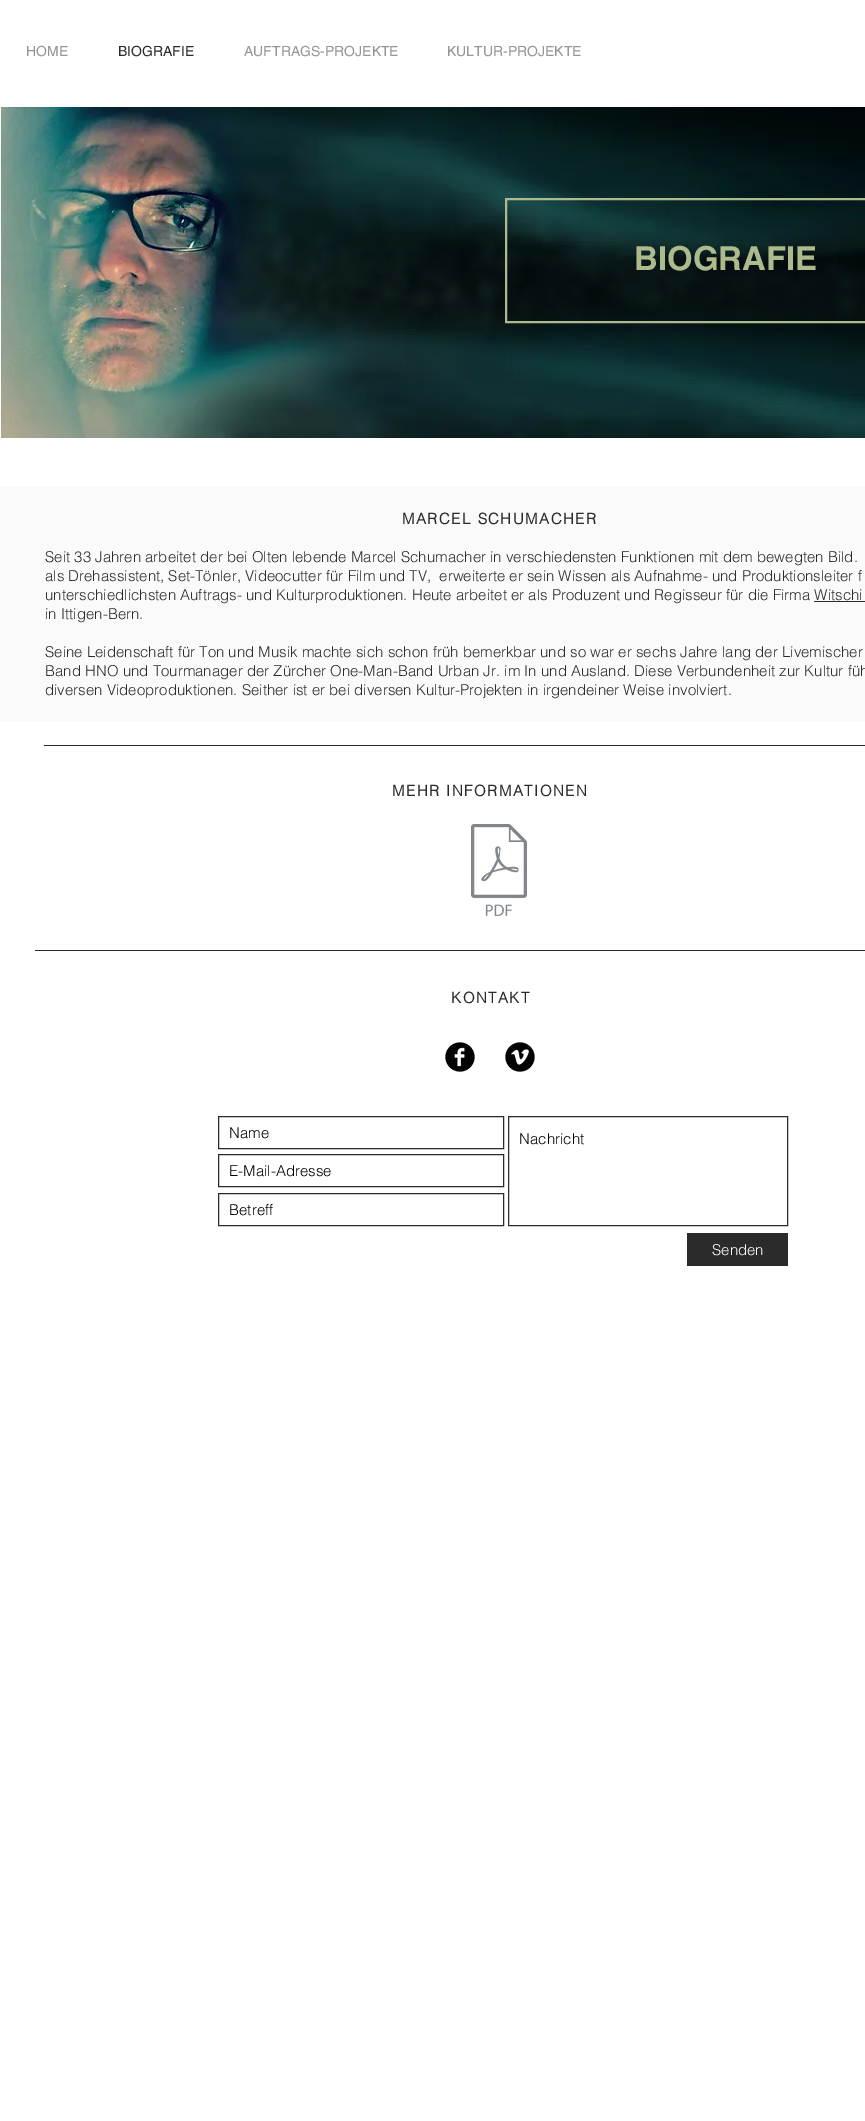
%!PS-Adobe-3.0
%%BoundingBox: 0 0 865 2121
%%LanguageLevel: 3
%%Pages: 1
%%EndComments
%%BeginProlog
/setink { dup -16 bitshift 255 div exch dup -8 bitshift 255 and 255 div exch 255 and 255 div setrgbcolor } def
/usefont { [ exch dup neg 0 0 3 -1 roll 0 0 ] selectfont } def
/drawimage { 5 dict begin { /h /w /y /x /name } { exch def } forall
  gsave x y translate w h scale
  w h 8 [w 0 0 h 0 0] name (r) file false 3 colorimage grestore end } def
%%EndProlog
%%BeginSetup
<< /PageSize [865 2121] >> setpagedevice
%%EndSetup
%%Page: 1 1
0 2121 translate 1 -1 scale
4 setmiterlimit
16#FFFFFF setink
0 0 865 2121 rectfill
/helvetica-Regular 14 usefont
16#979595 setink
26 56 moveto (HOME) show
16#2B2B2B setink
118 56 moveto (BIOGRAFIE) show
16#979595 setink
244 56 moveto (AUFTRAGS-PROJEKTE) show
447 56 moveto (KULTUR-PROJEKTE) show
(img1.raw) 1 107 864 331 drawimage
16#ACBA8D setink
2 setlinewidth
506 199 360 123 rectstroke
/helvetica-Bold 33 usefont
634 270 moveto (BIOGRAFIE) show
16#FAFAFA setink
0 486 865 236 rectfill
/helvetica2-Bold 15 usefont
16#2B2B2B setink
402 524 moveto 1.5 0 (MARCEL SCHUMACHER) ashow
/helvetica-Light 15 usefont
[
    [(Seit 33 Jahren arbeitet der bei Olten lebende Marcel Schumacher in verschiedensten Funktionen mit dem bewegten Bild.) 45 562]
    [(als Drehassistent, Set-Tönler, Videocutter für Film und TV,  erweiterte er sein Wissen als Aufnahme- und Produktionsleiter f) 45 581]
    [(unterschiedlichsten Auftrags- und Kulturproduktionen. Heute arbeitet er als Produzent und Regisseur für die Firma Witschi) 45 600]
] { aload pop moveto show } forall
814 601 51 1 rectfill
[
    [(in Ittigen-Bern.) 45 619]
    [(Seine Leidenschaft für Ton und Musik machte sich schon früh bemerkbar und so war er sechs Jahre lang der Livemischer) 45 657]
    [(Band HNO und Tourmanager der Zürcher One-Man-Band Urban Jr. im In und Ausland. Diese Verbundenheit zur Kultur füh) 45 676]
    [(diversen Videoproduktionen. Seither ist er bei diversen Kultur-Projekten in irgendeiner Weise involviert.) 45 695]
] { aload pop moveto show } forall
44 745 821 1 rectfill
/helvetica2-Bold 15 usefont
392 796 moveto 1.5 0 (MEHR INFORMATIONEN) ashow
(img2.raw) 471 824 56 92 drawimage
35 950 830 1 rectfill
451 1003 moveto 1.5 0 (KONTAKT) ashow
(img3.raw) 445 1042 30 30 drawimage
(img4.raw) 505 1042 30 30 drawimage
1 setlinewidth
218.5 1116.5 285 32 rectstroke
/helvetica-Light 15 usefont
16#000000 setink
229 1138 moveto (Name) show
16#2B2B2B setink
508.5 1116.5 279 109 rectstroke
16#000000 setink
519 1144 moveto (Nachricht) show
16#2B2B2B setink
218.5 1154.5 285 32 rectstroke
16#000000 setink
229 1176 moveto (E-Mail-Adresse) show
16#2B2B2B setink
218.5 1193.5 285 32 rectstroke
16#000000 setink
229 1215 moveto (Betreff) show
16#2B2B2B setink
687 1233 101 33 rectfill
16#FFFFFF setink
712 1255 moveto (Senden) show
showpage
%%EOF
